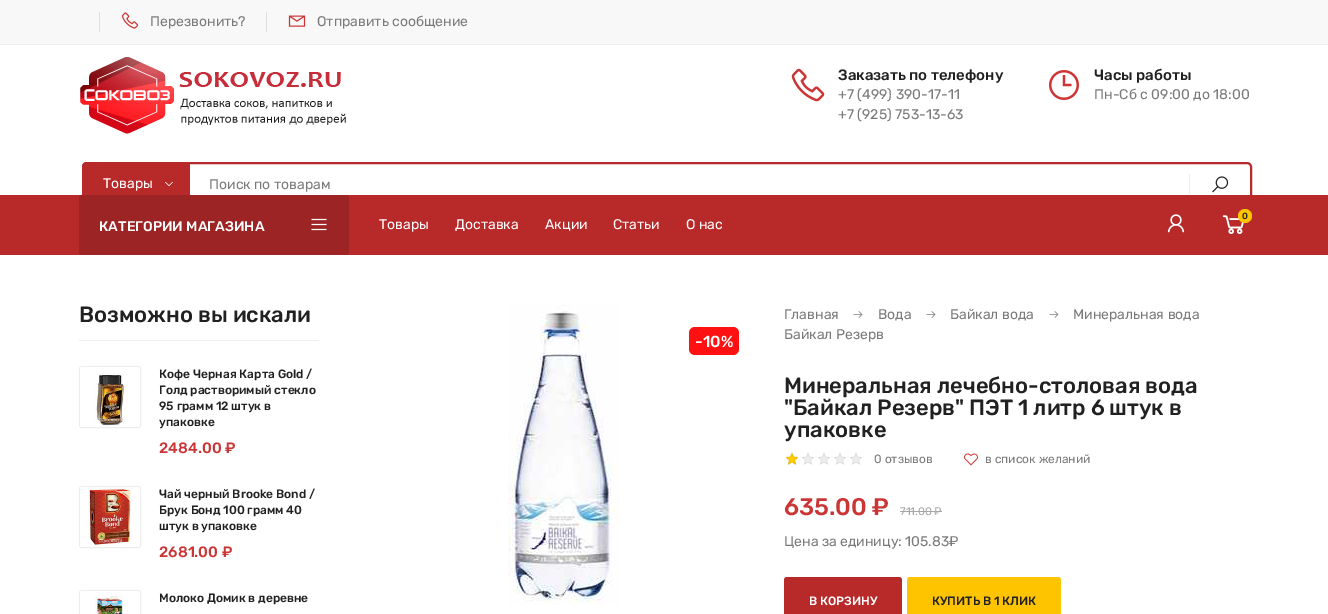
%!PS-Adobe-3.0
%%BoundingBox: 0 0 1328 614
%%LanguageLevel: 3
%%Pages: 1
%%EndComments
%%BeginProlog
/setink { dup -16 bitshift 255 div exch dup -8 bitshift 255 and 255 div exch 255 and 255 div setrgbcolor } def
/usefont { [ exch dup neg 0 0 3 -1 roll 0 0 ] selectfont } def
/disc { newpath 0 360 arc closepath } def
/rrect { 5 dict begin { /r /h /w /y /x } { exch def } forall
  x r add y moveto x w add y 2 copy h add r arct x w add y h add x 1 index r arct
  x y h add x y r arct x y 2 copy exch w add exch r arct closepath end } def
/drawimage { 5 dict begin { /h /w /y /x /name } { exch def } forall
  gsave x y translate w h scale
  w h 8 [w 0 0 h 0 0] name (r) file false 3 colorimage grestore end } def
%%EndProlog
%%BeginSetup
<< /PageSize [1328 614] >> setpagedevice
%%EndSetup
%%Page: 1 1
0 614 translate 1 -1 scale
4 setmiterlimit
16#FFFFFF setink
0 0 1328 614 rectfill
[
    [0 0 1328 44 16#F8F8F8]
    [0 44 1328 1 16#EDEDED]
    [99 12 1 20 16#DFDFDF]
] { aload pop setink rectfill } forall
(img1.raw) 121 12 18 17 drawimage
/Rubik-Regular 14 usefont
16#7A7A7A setink
150 26 moveto (Перезвонить?) show
16#DFDFDF setink
266 12 1 20 rectfill
(img2.raw) 288 15 18 12 drawimage
16#7A7A7A setink
317 26 moveto (Отправить сообщение) show
(img3.raw) 80 57 266 77 drawimage
(img4.raw) 791 68 34 34 drawimage
/Rubik-Medium 15 usefont
16#212121 setink
838 80 moveto (Заказать по телефону) show
/Rubik-Regular 14 usefont
16#7A7A7A setink
838 99 moveto (+7 \(499\) 390-17-11) show
838 119 moveto (+7 \(925\) 753-13-63) show
(img5.raw) 1049 70 30 30 drawimage
/Rubik-Medium 15 usefont
16#212121 setink
1094 80 moveto (Часы работы) show
/Rubik-Regular 14 usefont
16#7A7A7A setink
1094 99 moveto (Пн-Cб с 09:00 до 18:00) show
16#B82A2A setink
2 setlinewidth
83 163 1168 42 4 rrect stroke
87 162 moveto 190 162 lineto 190 206 lineto 87 206 lineto 84 206 82 204 82 201 curveto 82 167 lineto 82 164 84 162 87 162 curveto closepath fill
(img6.raw) 165 182 8 4 drawimage
16#FFFFFF setink
103 188 moveto (Товары) show
16#7A7A7A setink
209 189 moveto (Поиск по товарам) show
16#EDEDED setink
1189 174 1 20 rectfill
(img7.raw) 1212 176 17 17 drawimage
16#B82A2A setink
0 195 1328 60 rectfill
16#9C2424 setink
79 195 270 60 3 rrect fill
/Rubik-Medium 14 usefont
16#FFFFFF setink
99 231 moveto (КАТЕГОРИИ МАГАЗИНА) show
(img8.raw) 311 218 16 13 drawimage
/Rubik-Regular 14 usefont
[
    [(Товары) 379 229]
    [(Доставка) 455 229]
    [(Акции) 545 229]
    [(Статьи) 613 229]
    [(О нас) 686 229]
] { aload pop moveto show } forall
(img9.raw) 1167 214 18 19 drawimage
(img10.raw) 1222 215 22 19 drawimage
16#FFC400 setink
1245 216 7 disc fill
/Rubik-Medium 9 usefont
16#212121 setink
1242 219 moveto (0) show
16#EDEDED setink
79 340 240 1 rectfill
/Rubik-Medium 22 usefont
16#212121 setink
79 322 moveto (Возможно вы искали) show
16#EDEDED setink
1 setlinewidth
79.5 366.5 61 61 2.5 rrect stroke
(img11.raw) 80 367 60 60 drawimage
/Rubik-Medium 12 usefont
16#212121 setink
[
    [(Кофе Черная Карта Gold /) 159 378]
    [(Голд растворимый стекло) 159 394]
    [(95 грамм 12 штук в) 159 410]
    [(упаковке) 159 426]
] { aload pop moveto show } forall
/Rubik-Medium 15 usefont
16#CC3535 setink
159 453 moveto (2484.00 ₽) show
16#EDEDED setink
79.5 486.5 61 61 2.5 rrect stroke
(img12.raw) 80 487 60 60 drawimage
/Rubik-Medium 12 usefont
16#212121 setink
[
    [(Чай черный Brooke Bond /) 159 498]
    [(Брук Бонд 100 грамм 40) 159 514]
    [(штук в упаковке) 159 530]
] { aload pop moveto show } forall
/Rubik-Medium 15 usefont
16#CC3535 setink
159 557 moveto (2681.00 ₽) show
16#EDEDED setink
79.5 590.5 61 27 2.5 rrect stroke
(img13.raw) 80 591 60 23 drawimage
/Rubik-Medium 12 usefont
16#212121 setink
159 602 moveto (Молоко Домик в деревне) show
(img14.raw) 508 305 112 300 drawimage
16#FF1111 setink
689 327 50 28 6 rrect fill
/Rubik-Medium 16 usefont
16#FFFFFF setink
695 347 moveto (-10%) show
/Rubik-Regular 14 usefont
16#7A7A7A setink
784 319 moveto (Главная) show
(img15.raw) 853 311 10 7 drawimage
878 319 moveto (Вода) show
(img15.raw) 926 311 10 7 drawimage
950 319 moveto (Байкал вода) show
(img15.raw) 1049 311 10 7 drawimage
1073 319 moveto (Минеральная вода) show
784 339 moveto (Байкал Резерв) show
/Rubik-Medium 22 usefont
16#212121 setink
[
    [(Минеральная лечебно-столовая вода) 784 393]
    [("Байкал Резерв" ПЭТ 1 литр 6 штук в) 784 415]
    [(упаковке) 784 437]
] { aload pop moveto show } forall
(img16.raw) 786 453 76 12 drawimage
(img17.raw) 786 453 12 12 drawimage
/Rubik-Regular 12 usefont
16#7A7A7A setink
874 463 moveto (0 отзывов) show
(img18.raw) 964 453 14 13 drawimage
985 463 moveto (в список желаний) show
/Rubik-Medium 24 usefont
16#CC3535 setink
784 515 moveto (635.00 ₽) show
/Rubik-Regular 11 usefont
16#A7A7A7 setink
900 515 moveto (711.00 ₽) show
900 511 42 1 rectfill
/Rubik-Regular 14 usefont
16#7A7A7A setink
784 546 moveto (Цена за единицу: 105.83₽) show
16#B82A2A setink
784 577 118 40 3 rrect fill
/Rubik-Medium 12 usefont
16#FFFFFF setink
809 605 moveto (В КОРЗИНУ) show
16#FFC400 setink
907 577 154 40 3 rrect fill
16#212121 setink
932 605 moveto (КУПИТЬ В 1 КЛИК) show
showpage
%%EOF
